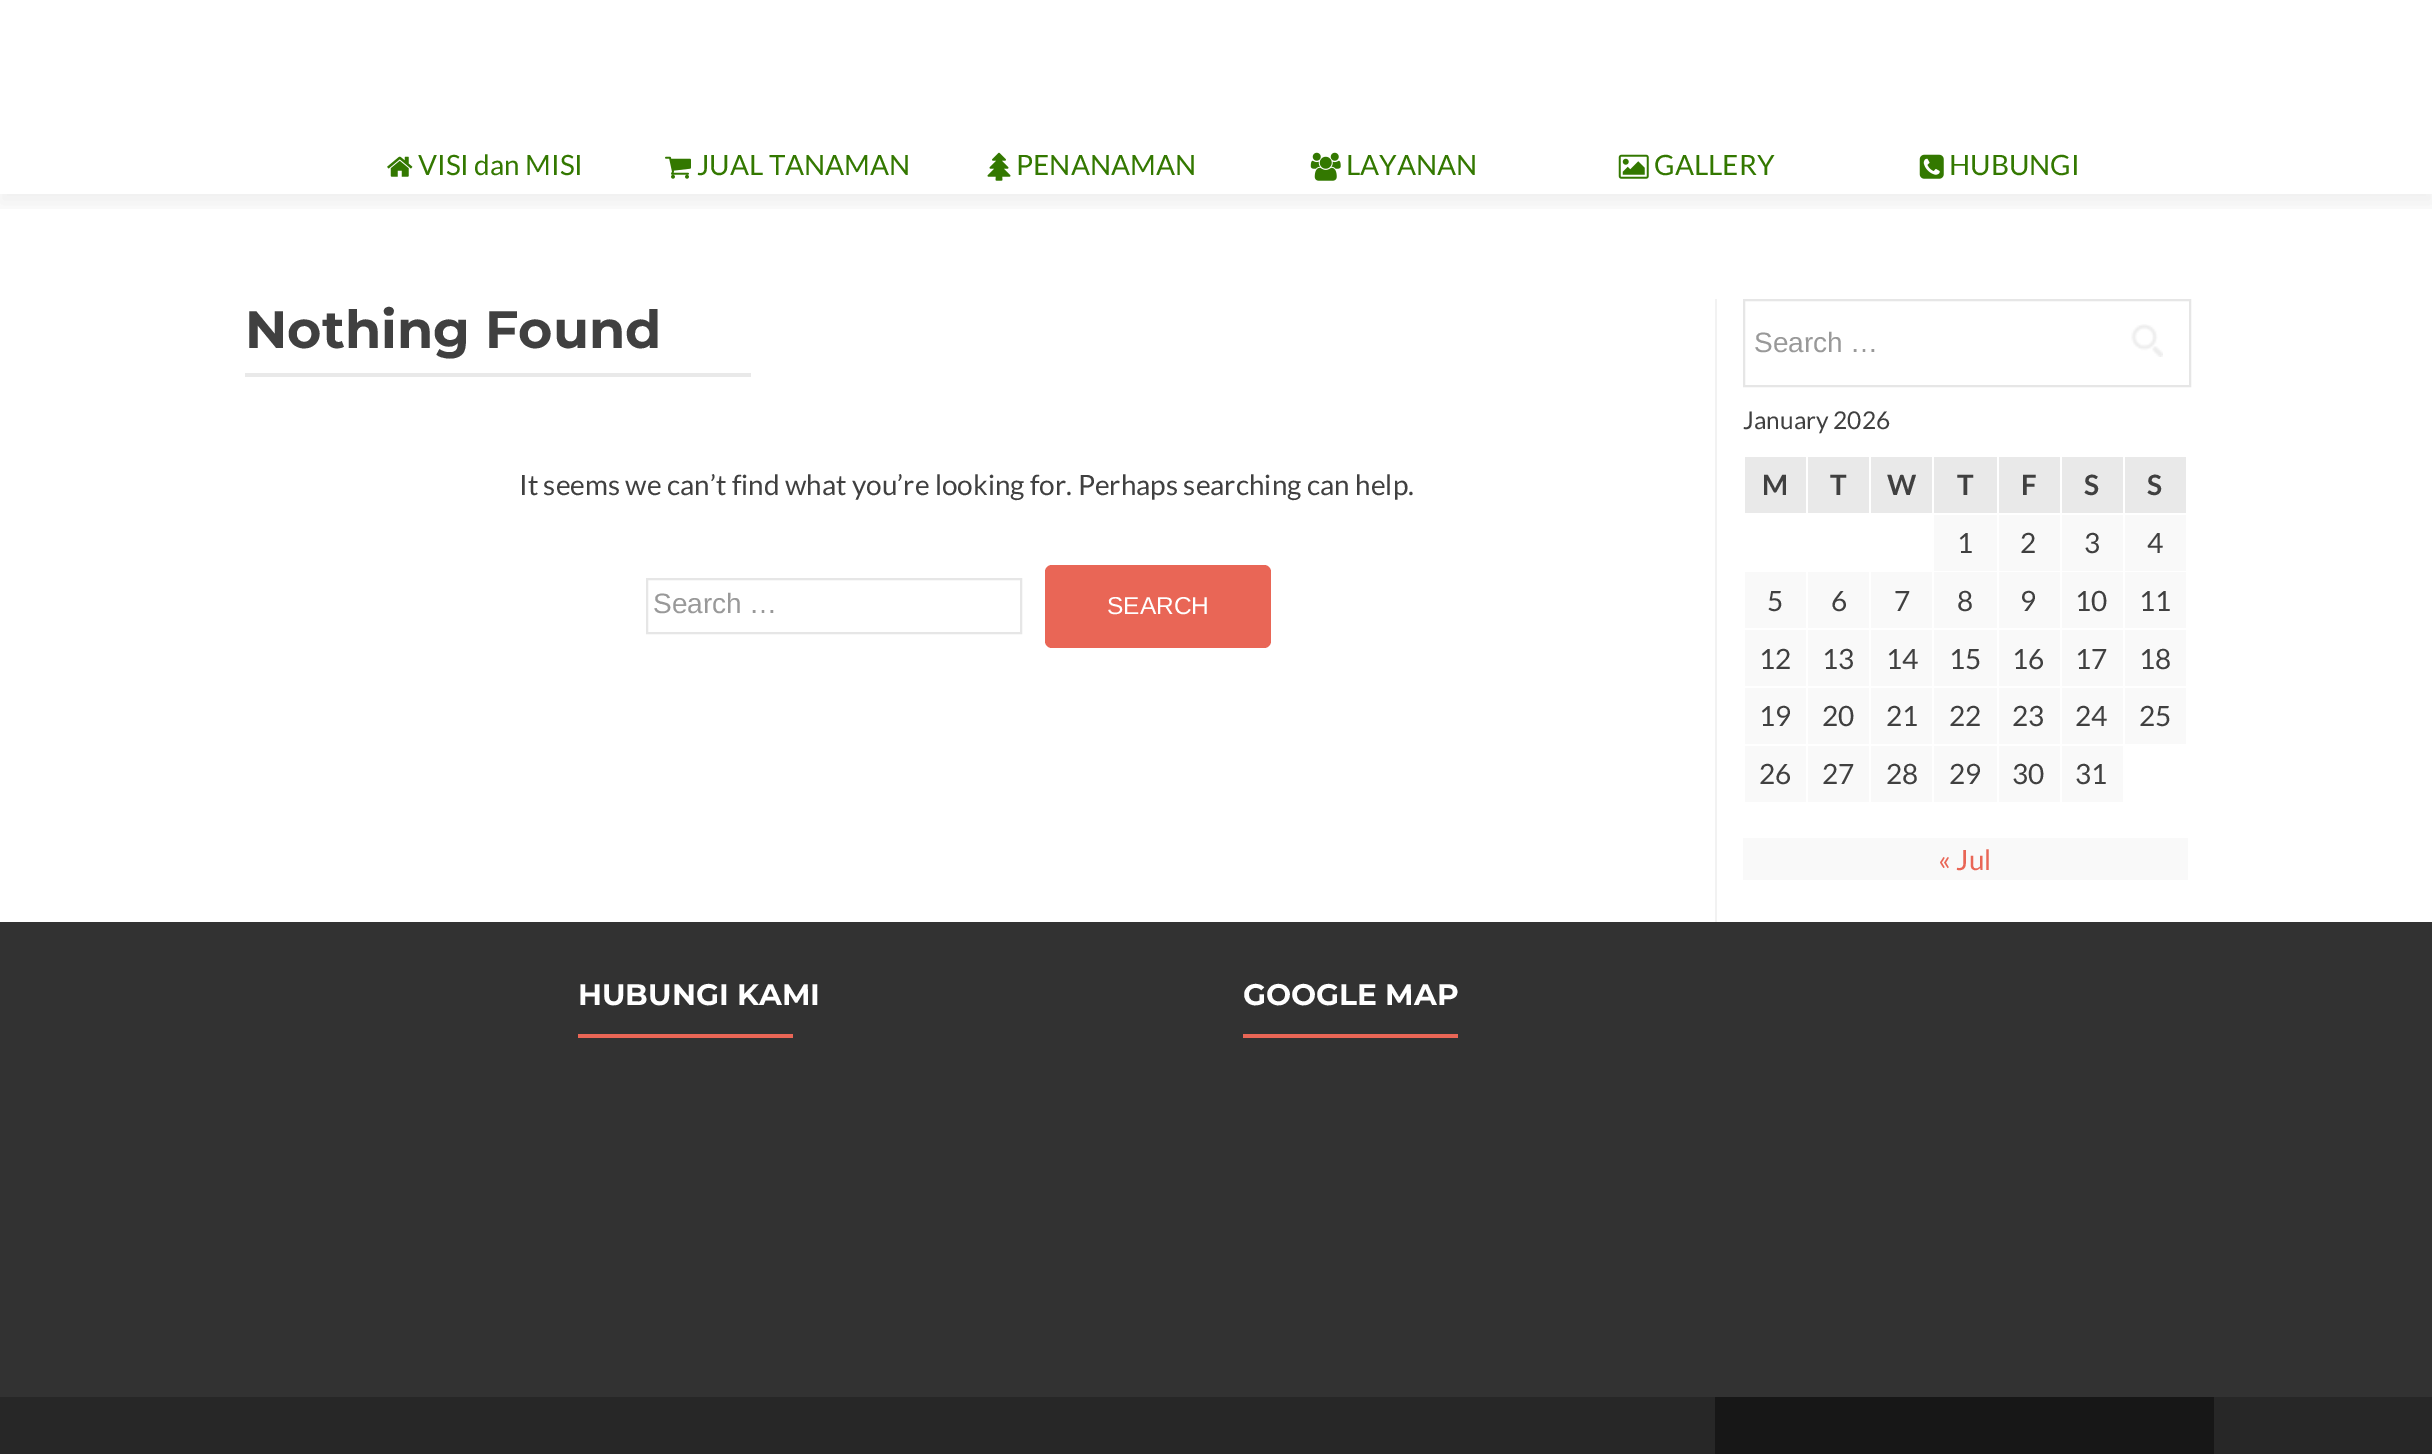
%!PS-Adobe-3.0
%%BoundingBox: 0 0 2432 1454
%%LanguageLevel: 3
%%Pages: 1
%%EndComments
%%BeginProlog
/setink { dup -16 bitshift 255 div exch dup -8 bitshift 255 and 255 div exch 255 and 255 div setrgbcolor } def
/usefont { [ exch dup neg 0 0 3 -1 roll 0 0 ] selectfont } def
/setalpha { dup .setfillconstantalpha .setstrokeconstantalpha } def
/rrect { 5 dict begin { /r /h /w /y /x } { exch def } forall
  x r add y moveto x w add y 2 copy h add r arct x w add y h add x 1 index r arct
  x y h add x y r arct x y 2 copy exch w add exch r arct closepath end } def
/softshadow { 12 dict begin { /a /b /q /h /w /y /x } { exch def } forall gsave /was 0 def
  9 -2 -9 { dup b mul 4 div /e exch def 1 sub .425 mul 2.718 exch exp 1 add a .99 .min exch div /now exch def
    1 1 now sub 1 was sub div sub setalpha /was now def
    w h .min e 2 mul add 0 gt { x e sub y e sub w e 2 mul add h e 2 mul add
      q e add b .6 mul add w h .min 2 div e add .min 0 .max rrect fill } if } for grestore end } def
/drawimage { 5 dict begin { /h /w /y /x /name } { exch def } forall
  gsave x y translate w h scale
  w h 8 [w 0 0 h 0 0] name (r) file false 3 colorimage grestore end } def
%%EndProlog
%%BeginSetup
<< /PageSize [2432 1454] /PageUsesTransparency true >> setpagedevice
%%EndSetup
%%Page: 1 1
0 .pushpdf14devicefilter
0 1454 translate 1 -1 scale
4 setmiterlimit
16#FFFFFF setink
0 0 2432 1454 rectfill
gsave
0 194 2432 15 rectclip
16#323232 setink
0 9 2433 194 0 9.5 0.08 softshadow
grestore
(img1.raw) 387 156 26 21 drawimage
/Lato-Regular 28 usefont
16#337800 setink
418 175 moveto (VISI dan MISI) show
(img2.raw) 665 156 26 23 drawimage
697 175 moveto (JUAL TANAMAN) show
(img3.raw) 987 152 24 29 drawimage
1016 175 moveto (PENANAMAN) show
(img4.raw) 1310 152 31 29 drawimage
1346 175 moveto (LAYANAN) show
(img5.raw) 1618 154 31 25 drawimage
1654 175 moveto (GALLERY) show
(img6.raw) 1919 154 25 25 drawimage
1949 175 moveto (HUBUNGI) show
/Montserrat-Thin 52.5 usefont
16#404040 setink
245 348 moveto (Nothing Found) show
16#E9E9E9 setink
245 373 506 4 rectfill
/Lato-Regular 28 usefont
16#404040 setink
519 495 moveto (It seems we can’t find what you’re looking for. Perhaps searching can help.) show
16#E6E6E6 setink
2 setlinewidth
647 579 374 54 rectstroke
/LiberationSans-Regular 28 usefont
16#999999 setink
653 613 moveto (Search …) show
16#E96656 setink
1045 565 226 83 7 rrect fill
/LiberationSans-Regular 24.5 usefont
16#FFFFFF setink
1107 614 moveto (SEARCH) show
16#F2F2F2 setink
1715 299 2 623 rectfill
16#E6E6E6 setink
1744 300 446 86 rectstroke
/LiberationSans-Regular 28 usefont
16#999999 setink
1754 352 moveto (Search …) show
(img7.raw) 2131 324 32 33 drawimage
/Lato-Regular 24.5 usefont
16#404040 setink
1743 429 moveto (January 2026) show
16#E9E9E9 setink
1745 457 61 56 rectfill
/Lato-Bold 28 usefont
16#404040 setink
1762 495 moveto (M) show
16#E9E9E9 setink
1808 457 61 56 rectfill
16#404040 setink
1830 495 moveto (T) show
16#E9E9E9 setink
1871 457 61 56 rectfill
16#404040 setink
1887 495 moveto (W) show
16#E9E9E9 setink
1934 457 63 56 rectfill
16#404040 setink
1957 495 moveto (T) show
16#E9E9E9 setink
1999 457 61 56 rectfill
16#404040 setink
2021 495 moveto (F) show
16#E9E9E9 setink
2062 457 61 56 rectfill
16#404040 setink
2084 495 moveto (S) show
16#E9E9E9 setink
2125 457 61 56 rectfill
16#404040 setink
2147 495 moveto (S) show
16#F9F9F9 setink
1934 515 63 56 rectfill
/Lato-Regular 28 usefont
16#404040 setink
1957 553 moveto (1) show
16#F9F9F9 setink
1999 515 61 56 rectfill
16#404040 setink
2020 553 moveto (2) show
16#F9F9F9 setink
2062 515 61 56 rectfill
16#404040 setink
2084 553 moveto (3) show
16#F9F9F9 setink
2125 515 61 56 rectfill
16#404040 setink
2147 553 moveto (4) show
16#F9F9F9 setink
1745 572 61 56 rectfill
16#404040 setink
1767 611 moveto (5) show
16#F9F9F9 setink
1808 572 61 56 rectfill
16#404040 setink
1831 611 moveto (6) show
16#F9F9F9 setink
1871 572 61 56 rectfill
16#404040 setink
1894 611 moveto (7) show
16#F9F9F9 setink
1934 572 63 56 rectfill
16#404040 setink
1957 611 moveto (8) show
16#F9F9F9 setink
1999 572 61 56 rectfill
16#404040 setink
2020 611 moveto (9) show
16#F9F9F9 setink
2062 572 61 56 rectfill
16#404040 setink
2075 611 moveto (10) show
16#F9F9F9 setink
2125 572 61 56 rectfill
16#404040 setink
2139 611 moveto (11) show
16#F9F9F9 setink
1745 630 61 56 rectfill
16#404040 setink
1759 669 moveto (12) show
16#F9F9F9 setink
1808 630 61 56 rectfill
16#404040 setink
1822 669 moveto (13) show
16#F9F9F9 setink
1871 630 61 56 rectfill
16#404040 setink
1886 669 moveto (14) show
16#F9F9F9 setink
1934 630 63 56 rectfill
16#404040 setink
1949 669 moveto (15) show
16#F9F9F9 setink
1999 630 61 56 rectfill
16#404040 setink
2012 669 moveto (16) show
16#F9F9F9 setink
2062 630 61 56 rectfill
16#404040 setink
2075 669 moveto (17) show
16#F9F9F9 setink
2125 630 61 56 rectfill
16#404040 setink
2139 669 moveto (18) show
16#F9F9F9 setink
1745 688 61 56 rectfill
16#404040 setink
1759 726 moveto (19) show
16#F9F9F9 setink
1808 688 61 56 rectfill
16#404040 setink
1822 726 moveto (20) show
16#F9F9F9 setink
1871 688 61 56 rectfill
16#404040 setink
1886 726 moveto (21) show
16#F9F9F9 setink
1934 688 63 56 rectfill
16#404040 setink
1949 726 moveto (22) show
16#F9F9F9 setink
1999 688 61 56 rectfill
16#404040 setink
2012 726 moveto (23) show
16#F9F9F9 setink
2062 688 61 56 rectfill
16#404040 setink
2075 726 moveto (24) show
16#F9F9F9 setink
2125 688 61 56 rectfill
16#404040 setink
2139 726 moveto (25) show
16#F9F9F9 setink
1745 746 61 56 rectfill
16#404040 setink
1759 784 moveto (26) show
16#F9F9F9 setink
1808 746 61 56 rectfill
16#404040 setink
1822 784 moveto (27) show
16#F9F9F9 setink
1871 746 61 56 rectfill
16#404040 setink
1886 784 moveto (28) show
16#F9F9F9 setink
1934 746 63 56 rectfill
16#404040 setink
1949 784 moveto (29) show
16#F9F9F9 setink
1999 746 61 56 rectfill
16#404040 setink
2012 784 moveto (30) show
16#F9F9F9 setink
2062 746 61 56 rectfill
16#404040 setink
2075 784 moveto (31) show
16#F9F9F9 setink
1743 838 445 42 rectfill
16#E96656 setink
1938 870 moveto (« Jul) show
16#272727 setink
0 1397 2432 57 rectfill
16#323232 setink
0 922 2432 475 rectfill
/Montserrat-Thin 29.75 usefont
16#FFFFFF setink
578 1005 moveto (HUBUNGI KAMI) show
16#E96656 setink
578 1034 215 4 rectfill
16#FFFFFF setink
1243 1005 moveto (GOOGLE MAP) show
16#E96656 setink
1243 1034 215 4 rectfill
16#171717 setink
1715 1397 499 57 rectfill
.poppdf14devicefilter showpage
%%EOF
